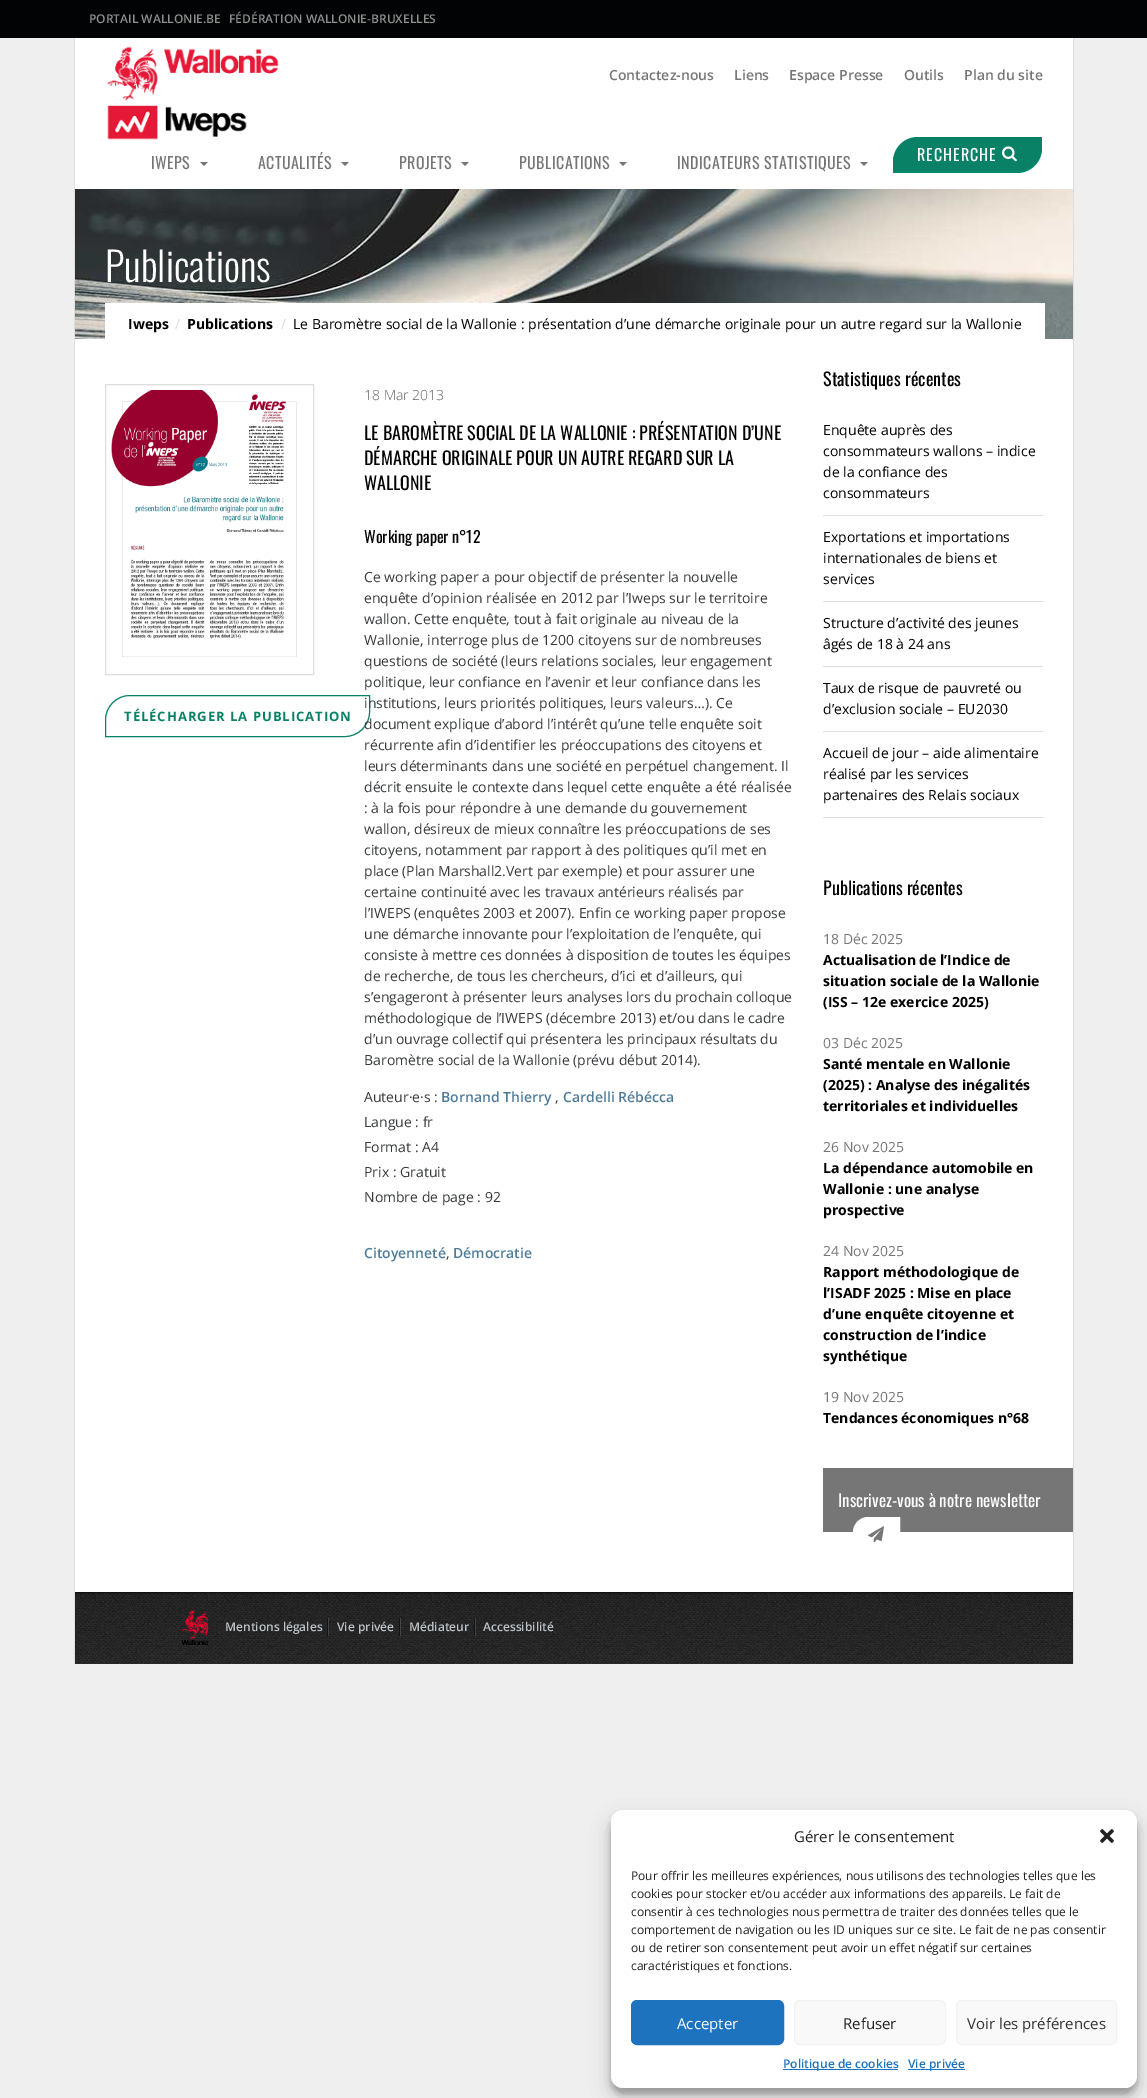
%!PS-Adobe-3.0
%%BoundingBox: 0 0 1147 2098
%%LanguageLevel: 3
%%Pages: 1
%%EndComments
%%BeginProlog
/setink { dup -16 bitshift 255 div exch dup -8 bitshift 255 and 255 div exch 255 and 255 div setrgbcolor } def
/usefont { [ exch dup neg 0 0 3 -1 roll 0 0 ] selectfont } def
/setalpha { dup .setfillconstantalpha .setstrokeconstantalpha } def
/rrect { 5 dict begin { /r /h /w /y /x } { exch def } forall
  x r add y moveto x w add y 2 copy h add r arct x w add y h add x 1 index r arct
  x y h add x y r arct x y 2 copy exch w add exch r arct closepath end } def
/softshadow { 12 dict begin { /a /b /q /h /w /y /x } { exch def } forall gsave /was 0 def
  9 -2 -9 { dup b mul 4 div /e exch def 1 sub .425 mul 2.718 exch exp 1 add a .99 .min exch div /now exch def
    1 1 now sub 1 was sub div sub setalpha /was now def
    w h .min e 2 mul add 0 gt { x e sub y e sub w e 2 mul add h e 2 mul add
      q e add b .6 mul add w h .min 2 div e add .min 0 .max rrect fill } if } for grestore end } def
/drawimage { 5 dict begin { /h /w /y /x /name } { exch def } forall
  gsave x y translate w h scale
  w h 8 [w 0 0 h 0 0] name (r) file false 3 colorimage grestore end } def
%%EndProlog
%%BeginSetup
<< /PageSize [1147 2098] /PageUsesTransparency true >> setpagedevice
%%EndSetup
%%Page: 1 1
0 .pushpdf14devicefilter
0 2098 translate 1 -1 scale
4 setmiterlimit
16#EFEFEF setink
0 0 1147 2098 rectfill
16#020304 setink
0 0 1147 38 rectfill
/OpenSans-SemiBold 12 usefont
16#8F8F8F setink
89 23 moveto (PORTAIL WALLONIE.BE) show
229 23 moveto (FÉDÉRATION WALLONIE-BRUXELLES) show
[
    [75 38 998 151 16#FFFFFF]
    [1073 38 1 1626 16#DDDDDD]
    [74 38 1 1626 16#DDDDDD]
] { aload pop setink rectfill } forall
(img1.raw) 107 46 172 94 drawimage
/OpenSans-SemiBold 14 usefont
16#767676 setink
[
    [(Contactez-nous) 609 80]
    [(Liens) 734 80]
    [(Espace Presse) 789 80]
    [(Outils) 904 80]
    [(Plan du site) 964 80]
] { aload pop moveto show } forall
/Oswald-Regular 16 usefont
151 169 moveto 0.4 0 (IWEPS) ashow
200 162 moveto 208 162 lineto 204 166 lineto closepath fill
258 169 moveto 0.4 0 (ACTUALITÉS) ashow
341 162 moveto 349 162 lineto 345 166 lineto closepath fill
399 169 moveto 0.4 0 (PROJETS) ashow
461 162 moveto 469 162 lineto 465 166 lineto closepath fill
519 169 moveto 0.4 0 (PUBLICATIONS) ashow
619 162 moveto 627 162 lineto 623 166 lineto closepath fill
677 169 moveto 0.4 0 (INDICATEURS STATISTIQUES) ashow
860 162 moveto 868 162 lineto 864 166 lineto closepath fill
16#008A6C setink
918 139 moveto 1042 139 lineto 1042 148 lineto 1042 162 1031 173 1017 173 curveto 893 173 lineto 893 164 lineto 893 150 904 139 918 139 curveto closepath fill
16#088167 setink
918 137 moveto 1042 137 lineto 1042 146 lineto 1042 160 1031 171 1017 171 curveto 893 171 lineto 893 162 lineto 893 148 904 137 918 137 curveto closepath fill
16#FFFFFF setink
917 161 moveto 1 0 (RECHERCHE) ashow
(img2.raw) 1002 146 15 16 drawimage
75 339 998 1253 rectfill
(img3.raw) 75 189 998 150 drawimage
/Oswald-Light 40 usefont
105 282 moveto (Publications) show
105 303 940 36 rectfill
/OpenSans-Bold 14 usefont
16#000000 setink
128 329 moveto (Iweps) show
/OpenSans-Regular 14 usefont
16#DDDDDD setink
175 329 moveto (/) show
/OpenSans-Bold 14 usefont
16#000000 setink
187 329 moveto (Publications) show
/OpenSans-Regular 14 usefont
16#DDDDDD setink
281 329 moveto (/) show
16#000000 setink
293 329 moveto (Le Baromètre social de la Wallonie : présentation d’une démarche originale pour un autre regard sur la Wallonie) show
16#DDDDDD setink
105.5 384.5 208 290 rectstroke
(img4.raw) 111 390 186 267 drawimage
16#088167 setink
130 695.5 moveto 369.5 695.5 lineto 369.5 712 lineto 369.5 725.5 358.5 736.5 345 736.5 curveto 105.5 736.5 lineto 105.5 720 lineto 105.5 706.5 116.5 695.5 130 695.5 curveto closepath stroke
/OpenSans-Bold 13 usefont
124 721 moveto 1 0 (TÉLÉCHARGER LA PUBLICATION) ashow
/OpenSans-Light 14 usefont
16#616161 setink
364 400 moveto (18 Mar 2013) show
/Oswald-Regular 18 usefont
16#000000 setink
[
    [(LE BAROMÈTRE SOCIAL DE LA WALLONIE : PRÉSENTATION D’UNE) 364 440]
    [(DÉMARCHE ORIGINALE POUR UN AUTRE REGARD SUR LA) 364 465]
    [(WALLONIE) 364 490]
] { aload pop moveto show } forall
/Oswald-Regular 16 usefont
364 543 moveto (Working paper n°12) show
/OpenSans-Regular 14 usefont
16#373A3C setink
[
    [(Ce working paper a pour objectif de présenter la nouvelle) 364 582]
    [(enquête d’opinion réalisée en 2012 par l’Iweps sur le territoire) 364 603]
    [(wallon. Cette enquête, tout à fait originale au niveau de la) 364 624]
    [(Wallonie, interroge plus de 1200 citoyens sur de nombreuses) 364 645]
    [(questions de société \(leurs relations sociales, leur engagement) 364 666]
    [(politique, leur confiance en l’avenir et leur confiance dans les) 364 687]
    [(institutions, leurs priorités politiques, leurs valeurs…\). Ce) 364 708]
    [(document explique d’abord l’intérêt qu’une telle enquête soit) 364 729]
    [(récurrente afin d’identifier les préoccupations des citoyens et) 364 750]
    [(leurs déterminants dans une société en perpétuel changement. Il) 364 771]
    [(décrit ensuite le contexte dans lequel cette enquête a été réalisée) 364 792]
    [(: à la fois pour répondre à une demande du gouvernement) 364 813]
    [(wallon, désireux de mieux connaître les préoccupations de ses) 364 834]
    [(citoyens, notamment par rapport à des politiques qu’il met en) 364 855]
    [(place \(Plan Marshall2.Vert par exemple\) et pour assurer une) 364 876]
    [(certaine continuité avec les travaux antérieurs réalisés par) 364 897]
    [(l’IWEPS \(enquêtes 2003 et 2007\). Enfin ce working paper propose) 364 918]
    [(une démarche innovante pour l’exploitation de l’enquête, qui) 364 939]
    [(consiste à mettre ces données à disposition de toutes les équipes) 364 960]
    [(de recherche, de tous les chercheurs, d’ici et d’ailleurs, qui) 364 981]
    [(s’engageront à présenter leurs analyses lors du prochain colloque) 364 1002]
    [(méthodologique de l’IWEPS \(décembre 2013\) et/ou dans le cadre) 364 1023]
    [(d’un ouvrage collectif qui présentera les principaux résultats du) 364 1044]
    [(Baromètre social de la Wallonie \(prévu début 2014\).) 364 1065]
    [(Auteur·e·s :) 364 1102]
] { aload pop moveto show } forall
/OpenSans-SemiBold 14 usefont
16#4E7B99 setink
441 1102 moveto (Bornand Thierry) show
/OpenSans-Regular 14 usefont
16#373A3C setink
555 1102 moveto (,) show
/OpenSans-SemiBold 14 usefont
16#4E7B99 setink
563 1102 moveto (Cardelli Rébécca) show
/OpenSans-Regular 14 usefont
16#373A3C setink
[
    [(Langue : fr) 364 1127]
    [(Format : A4) 364 1152]
    [(Prix : Gratuit) 364 1177]
    [(Nombre de page : 92) 364 1202]
] { aload pop moveto show } forall
/OpenSans-SemiBold 14 usefont
16#4E7B99 setink
364 1258 moveto (Citoyenneté) show
/OpenSans-Regular 14 usefont
16#373A3C setink
446 1258 moveto (,) show
/OpenSans-SemiBold 14 usefont
16#4E7B99 setink
453 1258 moveto (Démocratie) show
/Oswald-Regular 18 usefont
16#000000 setink
823 386 moveto (Statistiques récentes) show
16#DDDDDD setink
823 515 220 1 rectfill
/OpenSans-Regular 14 usefont
16#000000 setink
[
    [(Enquête auprès des) 823 435]
    [(consommateurs wallons – indice) 823 456]
    [(de la confiance des) 823 477]
    [(consommateurs) 823 498]
] { aload pop moveto show } forall
16#DDDDDD setink
823 601 220 1 rectfill
16#000000 setink
[
    [(Exportations et importations) 823 542]
    [(internationales de biens et) 823 563]
    [(services) 823 584]
] { aload pop moveto show } forall
16#DDDDDD setink
823 666 220 1 rectfill
16#000000 setink
823 628 moveto (Structure d’activité des jeunes) show
823 649 moveto (âgés de 18 à 24 ans) show
16#DDDDDD setink
823 731 220 1 rectfill
16#000000 setink
823 693 moveto (Taux de risque de pauvreté ou) show
823 714 moveto (d’exclusion sociale – EU2030) show
16#DDDDDD setink
823 817 220 1 rectfill
16#000000 setink
[
    [(Accueil de jour – aide alimentaire) 823 758]
    [(réalisé par les services) 823 779]
    [(partenaires des Relais sociaux) 823 800]
] { aload pop moveto show } forall
/Oswald-Regular 18 usefont
823 895 moveto (Publications récentes) show
/OpenSans-Regular 14 usefont
16#767676 setink
823 944 moveto (18 Déc 2025) show
/OpenSans-Bold 14 usefont
16#000000 setink
[
    [(Actualisation de l’Indice de) 823 965]
    [(situation sociale de la Wallonie) 823 986]
    [(\(ISS – 12e exercice 2025\)) 823 1007]
] { aload pop moveto show } forall
/OpenSans-Regular 14 usefont
16#767676 setink
823 1048 moveto (03 Déc 2025) show
/OpenSans-Bold 14 usefont
16#000000 setink
[
    [(Santé mentale en Wallonie) 823 1069]
    [(\(2025\) : Analyse des inégalités) 823 1090]
    [(territoriales et individuelles) 823 1111]
] { aload pop moveto show } forall
/OpenSans-Regular 14 usefont
16#767676 setink
823 1152 moveto (26 Nov 2025) show
/OpenSans-Bold 14 usefont
16#000000 setink
[
    [(La dépendance automobile en) 823 1173]
    [(Wallonie : une analyse) 823 1194]
    [(prospective) 823 1215]
] { aload pop moveto show } forall
/OpenSans-Regular 14 usefont
16#767676 setink
823 1256 moveto (24 Nov 2025) show
/OpenSans-Bold 14 usefont
16#000000 setink
[
    [(Rapport méthodologique de) 823 1277]
    [(l’ISADF 2025 : Mise en place) 823 1298]
    [(d’une enquête citoyenne et) 823 1319]
    [(construction de l’indice) 823 1340]
    [(synthétique) 823 1361]
] { aload pop moveto show } forall
/OpenSans-Regular 14 usefont
16#767676 setink
823 1402 moveto (19 Nov 2025) show
/OpenSans-Bold 14 usefont
16#000000 setink
823 1423 moveto (Tendances économiques n°68) show
16#767676 setink
823 1468 250 64 rectfill
/Oswald-Regular 17 usefont
16#FFFFFF setink
838 1507 moveto (Inscrivez-vous à notre newsletter) show
868 1517.5 moveto 899.5 1517.5 lineto 899.5 1536 lineto 899.5 1544 893 1550.5 885 1550.5 curveto 853.5 1550.5 lineto 853.5 1532 lineto 853.5 1524 860 1517.5 868 1517.5 curveto closepath gsave fill grestore
stroke
(img5.raw) 868 1526 16 17 drawimage
(img6.raw) 75 1592 998 72 drawimage
(img7.raw) 181 1610 28 36 drawimage
16#141414 setink
327 1618 1 18 rectfill
/OpenSans-SemiBold 12 usefont
16#BBC3C9 setink
225 1631 moveto (Mentions légales) show
16#434343 setink
328 1618 1 18 rectfill
16#141414 setink
399 1618 1 18 rectfill
16#BBC3C9 setink
337 1631 moveto (Vie privée) show
16#434343 setink
400 1618 1 18 rectfill
16#141414 setink
474 1618 1 18 rectfill
16#BBC3C9 setink
409 1631 moveto (Médiateur) show
16#434343 setink
475 1618 1 18 rectfill
16#BBC3C9 setink
483 1631 moveto (Accessibilité) show
16#000000 setink
611 1816 526 278 12 3 0.23 softshadow
611 1820 526 278 12 10 0.19 softshadow
16#FFFFFF setink
611 1810 526 278 12 rrect fill
/OpenSans-Regular 15 usefont
16#222222 setink
794 1842 moveto (Gérer le consentement) show
(img8.raw) 1100 1829 14 14 drawimage
/OpenSans-Regular 12 usefont
[
    [(Pour offrir les meilleures expériences, nous utilisons des technologies telles que les) 631 1880]
    [(cookies pour stocker et/ou accéder aux informations des appareils. Le fait de) 631 1898]
    [(consentir à ces technologies nous permettra de traiter des données telles que le) 631 1916]
    [(comportement de navigation ou les ID uniques sur ce site. Le fait de ne pas consentir) 631 1934]
    [(ou de retirer son consentement peut avoir un effet négatif sur certaines) 631 1952]
    [(caractéristiques et fonctions.) 631 1970]
] { aload pop moveto show } forall
16#1E73BE setink
631.5 2000.5 152 44 5.5 rrect gsave fill grestore
stroke
/OpenSans-Regular 15 usefont
16#FFFFFF setink
677 2029 moveto (Accepter) show
16#F9F9F9 setink
794.5 2000.5 151 44 5.5 rrect gsave fill grestore
16#F2F2F2 setink
stroke
16#222222 setink
843 2029 moveto (Refuser) show
16#F9F9F9 setink
956.5 2000.5 160 44 5.5 rrect gsave fill grestore
16#F2F2F2 setink
stroke
16#333333 setink
967 2029 moveto (Voir les préférences) show
16#1E73BE setink
783 2069 115 1 rectfill
/OpenSans-SemiBold 12 usefont
783 2068 moveto (Politique de cookies) show
908 2069 57 1 rectfill
908 2068 moveto (Vie privée) show
.poppdf14devicefilter showpage
%%EOF
